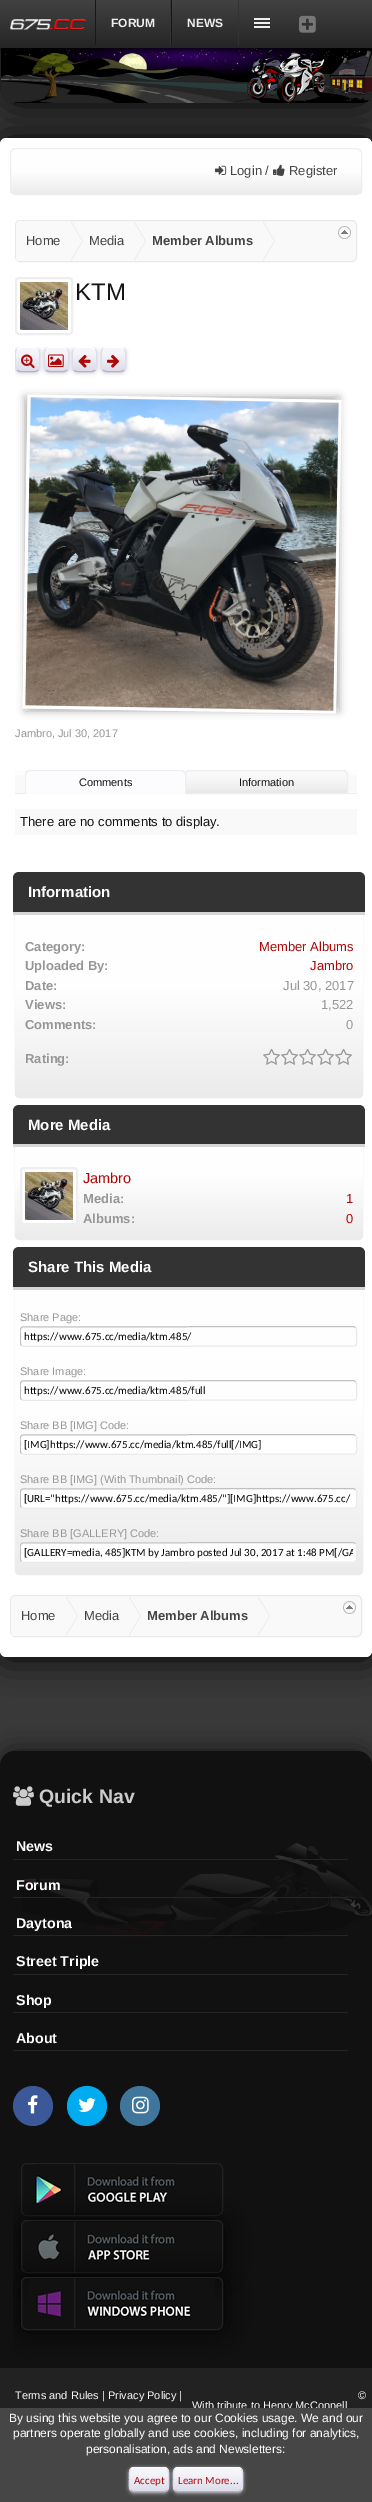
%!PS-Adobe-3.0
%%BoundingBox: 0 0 372 2502
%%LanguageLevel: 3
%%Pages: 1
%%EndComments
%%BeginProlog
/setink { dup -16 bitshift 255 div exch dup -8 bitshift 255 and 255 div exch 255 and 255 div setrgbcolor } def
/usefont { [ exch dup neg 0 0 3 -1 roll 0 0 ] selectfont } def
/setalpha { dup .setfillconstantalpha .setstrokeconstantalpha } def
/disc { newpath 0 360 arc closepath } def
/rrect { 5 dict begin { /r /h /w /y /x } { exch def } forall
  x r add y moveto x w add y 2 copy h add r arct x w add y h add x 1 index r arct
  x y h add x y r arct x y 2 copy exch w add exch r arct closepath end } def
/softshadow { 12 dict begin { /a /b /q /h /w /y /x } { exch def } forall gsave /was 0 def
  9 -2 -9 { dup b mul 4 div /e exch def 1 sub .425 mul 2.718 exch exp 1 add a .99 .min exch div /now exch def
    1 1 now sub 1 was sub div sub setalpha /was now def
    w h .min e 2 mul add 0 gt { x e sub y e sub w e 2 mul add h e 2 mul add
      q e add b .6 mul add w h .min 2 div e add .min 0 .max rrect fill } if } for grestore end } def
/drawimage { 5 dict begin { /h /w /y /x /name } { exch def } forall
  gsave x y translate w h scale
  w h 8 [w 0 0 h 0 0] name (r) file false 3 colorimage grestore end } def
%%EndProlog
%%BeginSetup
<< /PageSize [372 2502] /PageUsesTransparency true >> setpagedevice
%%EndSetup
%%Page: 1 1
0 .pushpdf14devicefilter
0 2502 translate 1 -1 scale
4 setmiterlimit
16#393939 setink
0 0 372 2502 rectfill
(img1.raw) 0 48 2 48 drawimage
16#000000 setink
2 1 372 103 15 17.5 1 softshadow
1 139 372 1519 6 17.5 1 softshadow
(img2.raw) 1 48 371 55 drawimage
1 1 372 48 0 3.5 1 softshadow
gsave 0 0 moveto 372 0 lineto 372 48 lineto 0 48 lineto closepath clip newpath
<< /ShadingType 2 /ColorSpace /DeviceRGB /Coords [186 0 186 48] /Extend [true true] /Function << /FunctionType 2 /Domain [0 1] /C0 [0.259 0.259 0.259] /C1 [0.145 0.145 0.145] /N 1 >> >> shfill grestore
(img3.raw) 10 19 76 11 drawimage
16#333333 setink
170 0 1 45 rectfill
16#181818 setink
95 0 1 45 rectfill
/LiberationSans-Bold 12 usefont
16#EFEFEF setink
111 27 moveto (FORUM) show
16#333333 setink
238 0 1 45 rectfill
16#181818 setink
171 0 1 45 rectfill
16#EFEFEF setink
187 27 moveto (NEWS) show
[
    [254 18 16 2 16#EFEFEF]
    [254 22 16 2 16#EFEFEF]
    [254 26 16 2 16#EFEFEF]
] { aload pop setink rectfill } forall
(img4.raw) 299 15 17 18 drawimage
16#FFFFFF setink
0 138 372 1519 6 rrect fill
gsave
10 148 352 47 6 rrect clip newpath
gsave 10 149 moveto 362 149 lineto 362 194 lineto 10 194 lineto closepath clip newpath
<< /ShadingType 2 /ColorSpace /DeviceRGB /Coords [186 149 186 194] /Extend [true true] /Function << /FunctionType 3 /Domain [0 1] /Functions [<< /FunctionType 2 /Domain [0 1] /C0 [1 1 1] /C1 [0.996 0.996 0.996] /N 1 >> << /FunctionType 2 /Domain [0 1] /C0 [0.996 0.996 0.996] /C1 [0.922 0.922 0.922] /N 1 >>] /Bounds [0.5] /Encode [0 1 0 1] >> >> shfill grestore
grestore
16#EEEEEE setink
10.5 148.5 351 46 5.5 rrect stroke
(img5.raw) 215 165 12 10 drawimage
/LiberationSans-Regular 13 usefont
16#454545 setink
230 175 moveto (Login /) show
(img6.raw) 273 164 12 12 drawimage
289 175 moveto (Register) show
16#F9F9F9 setink
15.5 220.5 341 41 4.5 rrect gsave fill grestore
16#E9E9E9 setink
stroke
(img7.raw) 338 226 13 13 drawimage
gsave
16 221 340 40 4 rrect clip newpath
16#F9F9F9 setink
21 221 moveto 71 221 lineto 71 262 lineto 21 262 lineto 18 262 16 260 16 257 curveto 16 226 lineto 16 223 18 221 21 221 curveto closepath fill
grestore
16#454545 setink
26 245 moveto (Home) show
16#E9E9E9 setink
71 261 moveto 71 221 lineto 83 241 lineto closepath fill
16#F9F9F9 setink
70 261 moveto 70 221 lineto 82 241 lineto closepath fill
16#454545 setink
89 245 moveto (Media) show
16#E9E9E9 setink
134 261 moveto 134 221 lineto 146 241 lineto closepath fill
16#F9F9F9 setink
133 261 moveto 133 221 lineto 145 241 lineto closepath fill
/LiberationSans-Bold 13 usefont
16#454545 setink
152 245 moveto (Member Albums) show
16#E9E9E9 setink
263 261 moveto 263 221 lineto 275 241 lineto closepath fill
16#F9F9F9 setink
262 261 moveto 262 221 lineto 274 241 lineto closepath fill
16#EEEEEE setink
2 setlinewidth
16 278 56 56 3 rrect stroke
(img8.raw) 20 282 48 48 drawimage
/LiberationSans-Regular 24 usefont
16#141414 setink
75 300 moveto (KTM) show
gsave
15 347 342 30 rectclip
16#C8C8D2 setink
15 348 25 25 5 2 1 softshadow
grestore
16#DCDCEB setink
15 347 25 25 5 rrect fill
(img9.raw) 15 348 25 21 drawimage
gsave
15 347 342 30 rectclip
16#FFFFFF setink
1 setlinewidth
17 349 moveto 19 346.5 24.5 347.5 27.5 347.5 curveto 30.5 347.5 36 346.5 38 349 curveto stroke
grestore
16#DDDDEB setink
1 setlinewidth
38 349 moveto 40.5 351 39.5 356.5 39.5 359.5 curveto 39.5 362.5 40.5 368 38 370 curveto stroke
16#B3B3BD setink
38 370 moveto 36 372.5 30.5 371.5 27.5 371.5 curveto 24.5 371.5 19 372.5 17 370 curveto stroke
gsave
15 347 342 30 rectclip
16#DDDDEB setink
17 370 moveto 14.5 368 15.5 362.5 15.5 359.5 curveto 15.5 356.5 14.5 351 17 349 curveto stroke
grestore
(img10.raw) 21 354 14 15 drawimage
gsave
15 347 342 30 rectclip
16#C8C8D2 setink
44 348 25 25 5 2 1 softshadow
grestore
16#DCDCEB setink
44 347 25 25 5 rrect fill
(img11.raw) 44 348 25 21 drawimage
gsave
15 347 342 30 rectclip
16#FFFFFF setink
46 349 moveto 48 346.5 53.5 347.5 56.5 347.5 curveto 59.5 347.5 65 346.5 67 349 curveto stroke
grestore
16#DDDDEB setink
67 349 moveto 69.5 351 68.5 356.5 68.5 359.5 curveto 68.5 362.5 69.5 368 67 370 curveto stroke
16#B3B3BD setink
67 370 moveto 65 372.5 59.5 371.5 56.5 371.5 curveto 53.5 371.5 48 372.5 46 370 curveto stroke
16#DDDDEB setink
46 370 moveto 43.5 368 44.5 362.5 44.5 359.5 curveto 44.5 356.5 43.5 351 46 349 curveto stroke
(img12.raw) 48 354 16 14 drawimage
gsave
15 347 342 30 rectclip
16#C8C8D2 setink
72 348 25 25 5 2 1 softshadow
grestore
16#DCDCEB setink
72 347 25 25 5 rrect fill
(img13.raw) 72 348 25 21 drawimage
gsave
15 347 342 30 rectclip
16#FFFFFF setink
74 349 moveto 76 346.5 81.5 347.5 84.5 347.5 curveto 87.5 347.5 93 346.5 95 349 curveto stroke
grestore
16#DDDDEB setink
95 349 moveto 97.5 351 96.5 356.5 96.5 359.5 curveto 96.5 362.5 97.5 368 95 370 curveto stroke
16#B3B3BD setink
95 370 moveto 93 372.5 87.5 371.5 84.5 371.5 curveto 81.5 371.5 76 372.5 74 370 curveto stroke
16#DDDDEB setink
74 370 moveto 71.5 368 72.5 362.5 72.5 359.5 curveto 72.5 356.5 71.5 351 74 349 curveto stroke
(img14.raw) 78 354 13 14 drawimage
gsave
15 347 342 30 rectclip
16#C8C8D2 setink
101 348 25 25 5 2 1 softshadow
grestore
16#DCDCEB setink
101 347 25 25 5 rrect fill
(img11.raw) 101 348 25 21 drawimage
gsave
15 347 342 30 rectclip
16#FFFFFF setink
103 349 moveto 105 346.5 110.5 347.5 113.5 347.5 curveto 116.5 347.5 122 346.5 124 349 curveto stroke
grestore
16#DDDDEB setink
124 349 moveto 126.5 351 125.5 356.5 125.5 359.5 curveto 125.5 362.5 126.5 368 124 370 curveto stroke
16#B3B3BD setink
124 370 moveto 122 372.5 116.5 371.5 113.5 371.5 curveto 110.5 371.5 105 372.5 103 370 curveto stroke
16#DDDDEB setink
103 370 moveto 100.5 368 101.5 362.5 101.5 359.5 curveto 101.5 356.5 100.5 351 103 349 curveto stroke
(img15.raw) 107 354 12 14 drawimage
16#A6A6A6 setink
25 397 314 314 0 4 1 softshadow
16#FFFFFF setink
3 setlinewidth
29 396 moveto 340 401.5 lineto 334.5 712 lineto 24 707 lineto closepath stroke
(img16.raw) 25 397 314 314 drawimage
/LiberationSans-Regular 11 usefont
16#969696 setink
15 737 moveto (Jambro, Jul 30, 2017) show
16#F9F9F9 setink
15 770 342 23 rectfill
(img17.raw) 15 770 342 5 drawimage
16#EEEEEE setink
15 793 342 1 rectfill
16#FCFCFF setink
30 770 moveto 181 770 lineto 184 770 186 772 186 775 curveto 186 794 lineto 25 794 lineto 25 775 lineto 25 772 27 770 30 770 curveto closepath fill
16#EEEEEE setink
30 770 moveto 181 770 lineto 184 770 186 772 186 775 curveto 186 794 lineto 25 794 lineto 25 775 lineto 25 772 27 770 30 770 curveto closepath 30 771 moveto 181 771 lineto 183 771 185 773 185 775 curveto 185 794 lineto 26 794 lineto 26 775 lineto 26 773 28 771 30 771 curveto closepath eofill
16#141414 setink
79 786 moveto (Comments) show
16#E9E9E9 setink
190 770 moveto 343 770 lineto 346 770 348 772 348 775 curveto 348 794 lineto 185 794 lineto 185 775 lineto 185 772 187 770 190 770 curveto closepath fill
(img18.raw) 185 771 163 19 drawimage
16#EEEEEE setink
1 setlinewidth
190 770.5 moveto 343 770.5 lineto 345.5 770.5 347.5 772.5 347.5 775 curveto 347.5 793.5 lineto 185.5 793.5 lineto 185.5 775 lineto 185.5 772.5 187.5 770.5 190 770.5 curveto closepath stroke
16#141414 setink
239 786 moveto (Information) show
16#F9F9F9 setink
15 809 342 26 rectfill
/LiberationSans-Regular 13 usefont
16#141414 setink
20 826 moveto (There are no comments to display.) show
16#000000 setink
15 880 348 218 6 0.5 0.1 softshadow
gsave 15 880 348 218 6 rrect clip newpath
<< /ShadingType 2 /ColorSpace /DeviceRGB /Coords [189 880 189 1098] /Extend [true true] /Function << /FunctionType 3 /Domain [0 1] /Functions [<< /FunctionType 2 /Domain [0 1] /C0 [1 1 1] /C1 [0.996 0.996 0.996] /N 1 >> << /FunctionType 2 /Domain [0 1] /C0 [0.996 0.996 0.996] /C1 [0.922 0.922 0.922] /N 1 >>] /Bounds [0.5] /Encode [0 1 0 1] >> >> shfill grestore
16#333333 setink
19 872 moveto 359 872 lineto 362.5 872 365 874.5 365 878 curveto 365 915 lineto 13 915 lineto 13 878 lineto 13 874.5 15.5 872 19 872 curveto closepath fill
16#D5D5D5 setink
13 912 352 3 rectfill
/LiberationSans-Bold 15 usefont
16#FFFFFF setink
28 897 moveto (Information) show
/LiberationSans-Bold 13 usefont
16#969696 setink
25 951 moveto (Category:) show
/LiberationSans-Regular 13 usefont
16#AF0707 setink
259 951 moveto (Member Albums) show
/LiberationSans-Bold 13 usefont
16#969696 setink
25 970 moveto (Uploaded By:) show
/LiberationSans-Regular 13 usefont
16#AF0707 setink
310 970 moveto (Jambro) show
/LiberationSans-Bold 13 usefont
16#969696 setink
25 990 moveto (Date:) show
/LiberationSans-Regular 13 usefont
283 990 moveto (Jul 30, 2017) show
/LiberationSans-Bold 13 usefont
25 1009 moveto (Views:) show
/LiberationSans-Regular 13 usefont
321 1009 moveto (1,522) show
/LiberationSans-Bold 13 usefont
25 1029 moveto (Comments:) show
/LiberationSans-Regular 13 usefont
346 1029 moveto (0) show
/LiberationSans-Bold 13 usefont
25 1063 moveto (Rating:) show
(img19.raw) 263 1049 17 16 drawimage
(img19.raw) 281 1049 17 16 drawimage
(img19.raw) 299 1049 17 16 drawimage
(img19.raw) 317 1049 17 16 drawimage
(img19.raw) 335 1049 17 16 drawimage
16#000000 setink
15 1113 348 127 6 0.5 0.1 softshadow
gsave 15 1113 348 127 6 rrect clip newpath
<< /ShadingType 2 /ColorSpace /DeviceRGB /Coords [189 1113 189 1240] /Extend [true true] /Function << /FunctionType 3 /Domain [0 1] /Functions [<< /FunctionType 2 /Domain [0 1] /C0 [1 1 1] /C1 [0.996 0.996 0.996] /N 1 >> << /FunctionType 2 /Domain [0 1] /C0 [0.996 0.996 0.996] /C1 [0.922 0.922 0.922] /N 1 >>] /Bounds [0.5] /Encode [0 1 0 1] >> >> shfill grestore
16#333333 setink
19 1105 moveto 359 1105 lineto 362.5 1105 365 1107.5 365 1111 curveto 365 1147 lineto 13 1147 lineto 13 1111 lineto 13 1107.5 15.5 1105 19 1105 curveto closepath fill
16#D5D5D5 setink
13 1144 352 3 rectfill
/LiberationSans-Bold 15 usefont
16#FFFFFF setink
28 1130 moveto (More Media) show
21 1168 56 56 3 rrect gsave fill grestore
16#EEEEEE setink
2 setlinewidth
stroke
(img8.raw) 25 1172 48 48 drawimage
/LiberationSans-Regular 14.5 usefont
16#AF0707 setink
83 1183 moveto (Jambro) show
/LiberationSans-Bold 13 usefont
16#969696 setink
83 1203 moveto (Media:) show
/LiberationSans-Regular 13 usefont
16#AF0707 setink
346 1203 moveto (1) show
/LiberationSans-Bold 13 usefont
16#969696 setink
83 1223 moveto (Albums:) show
/LiberationSans-Regular 13 usefont
16#AF0707 setink
346 1223 moveto (0) show
16#000000 setink
15 1255 348 320 6 0.5 0.1 softshadow
gsave 15 1255 348 320 6 rrect clip newpath
<< /ShadingType 2 /ColorSpace /DeviceRGB /Coords [189 1255 189 1575] /Extend [true true] /Function << /FunctionType 3 /Domain [0 1] /Functions [<< /FunctionType 2 /Domain [0 1] /C0 [1 1 1] /C1 [0.996 0.996 0.996] /N 1 >> << /FunctionType 2 /Domain [0 1] /C0 [0.996 0.996 0.996] /C1 [0.922 0.922 0.922] /N 1 >>] /Bounds [0.5] /Encode [0 1 0 1] >> >> shfill grestore
16#333333 setink
19 1247 moveto 359 1247 lineto 362.5 1247 365 1249.5 365 1253 curveto 365 1290 lineto 13 1290 lineto 13 1253 lineto 13 1249.5 15.5 1247 19 1247 curveto closepath fill
16#D5D5D5 setink
13 1287 352 3 rectfill
/LiberationSans-Bold 15 usefont
16#FFFFFF setink
28 1272 moveto (Share This Media) show
/LiberationSans-Regular 11 usefont
16#969696 setink
20 1321 moveto (Share Page:) show
16#E9E9E9 setink
1 setlinewidth
355.5 1327.5 moveto 357.5 1329.5 356.5 1334 356.5 1336.5 curveto 356.5 1339 358 1345 354.5 1346 curveto 24 1346.5 lineto 21.5 1345.5 lineto stroke
gsave
20 1326 338 23 rectclip
16#C0C0C0 setink
21.5 1345.5 moveto 19.5 1343.5 20.5 1339 20.5 1336.5 curveto 20.5 1334 19 1328 22.5 1327 curveto 353 1326.5 lineto 355.5 1327.5 lineto stroke
grestore
/Carlito-Regular 11 usefont
16#000000 setink
24 1340 moveto (https://www.675.cc/media/ktm.485/) show
/LiberationSans-Regular 11 usefont
16#969696 setink
20 1375 moveto (Share Image:) show
16#E9E9E9 setink
355.5 1381.5 moveto 357.5 1383.5 356.5 1388 356.5 1390.5 curveto 356.5 1393 358 1399 354.5 1400 curveto 24 1400.5 lineto 21.5 1399.5 lineto stroke
gsave
20 1380 338 23 rectclip
16#C0C0C0 setink
21.5 1399.5 moveto 19.5 1397.5 20.5 1393 20.5 1390.5 curveto 20.5 1388 19 1382 22.5 1381 curveto 353 1380.5 lineto 355.5 1381.5 lineto stroke
grestore
/Carlito-Regular 11 usefont
16#000000 setink
24 1394 moveto (https://www.675.cc/media/ktm.485/full) show
/LiberationSans-Regular 11 usefont
16#969696 setink
20 1429 moveto (Share BB [IMG] Code:) show
16#FFFFFF setink
20 1434 337 21 4 rrect fill
16#E9E9E9 setink
355.5 1435.5 moveto 357.5 1437.5 356.5 1442 356.5 1444.5 curveto 356.5 1447 358 1453 354.5 1454 curveto 24 1454.5 lineto 21.5 1453.5 lineto stroke
gsave
20 1434 338 23 rectclip
16#C0C0C0 setink
21.5 1453.5 moveto 19.5 1451.5 20.5 1447 20.5 1444.5 curveto 20.5 1442 19 1436 22.5 1435 curveto 353 1434.5 lineto 355.5 1435.5 lineto stroke
grestore
/Carlito-Regular 11 usefont
16#000000 setink
24 1448 moveto ([IMG]https://www.675.cc/media/ktm.485/full[/IMG]) show
/LiberationSans-Regular 11 usefont
16#969696 setink
20 1483 moveto (Share BB [IMG] \(With Thumbnail\) Code:) show
16#FFFFFF setink
20 1488 337 21 4 rrect fill
16#E9E9E9 setink
355.5 1489.5 moveto 357.5 1491.5 356.5 1496 356.5 1498.5 curveto 356.5 1501 358 1507 354.5 1508 curveto 24 1508.5 lineto 21.5 1507.5 lineto stroke
gsave
20 1488 338 23 rectclip
16#C0C0C0 setink
21.5 1507.5 moveto 19.5 1505.5 20.5 1501 20.5 1498.5 curveto 20.5 1496 19 1490 22.5 1489 curveto 353 1488.5 lineto 355.5 1489.5 lineto stroke
grestore
/Carlito-Regular 11 usefont
16#000000 setink
24 1502 moveto ([URL="https://www.675.cc/media/ktm.485/"][IMG]https://www.675.cc/) show
/LiberationSans-Regular 11 usefont
16#969696 setink
20 1537 moveto (Share BB [GALLERY] Code:) show
16#FFFFFF setink
20 1542 337 21 4 rrect fill
16#E9E9E9 setink
355.5 1543.5 moveto 357.5 1545.5 356.5 1550 356.5 1552.5 curveto 356.5 1555 358 1561 354.5 1562 curveto 24 1562.5 lineto 21.5 1561.5 lineto stroke
gsave
20 1542 338 23 rectclip
16#C0C0C0 setink
21.5 1561.5 moveto 19.5 1559.5 20.5 1555 20.5 1552.5 curveto 20.5 1550 19 1544 22.5 1543 curveto 353 1542.5 lineto 355.5 1543.5 lineto stroke
grestore
gsave
24 1546 329 13 rectclip
/Carlito-Regular 11 usefont
16#000000 setink
24 1556 moveto ([GALLERY=media, 485]KTM by Jambro posted Jul 30, 2017 at 1:48 PM[/GA) show
grestore
16#F9F9F9 setink
10.5 1595.5 351 41 4.5 rrect gsave fill grestore
16#E9E9E9 setink
stroke
(img7.raw) 343 1601 13 13 drawimage
gsave
11 1596 350 40 4 rrect clip newpath
16#F9F9F9 setink
16 1596 moveto 66 1596 lineto 66 1637 lineto 16 1637 lineto 13 1637 11 1635 11 1632 curveto 11 1601 lineto 11 1598 13 1596 16 1596 curveto closepath fill
grestore
/LiberationSans-Regular 13 usefont
16#454545 setink
21 1620 moveto (Home) show
16#E9E9E9 setink
66 1636 moveto 66 1596 lineto 78 1616 lineto closepath fill
16#F9F9F9 setink
65 1636 moveto 65 1596 lineto 77 1616 lineto closepath fill
16#454545 setink
84 1620 moveto (Media) show
16#E9E9E9 setink
129 1636 moveto 129 1596 lineto 141 1616 lineto closepath fill
16#F9F9F9 setink
128 1636 moveto 128 1596 lineto 140 1616 lineto closepath fill
/LiberationSans-Bold 13 usefont
16#454545 setink
147 1620 moveto (Member Albums) show
16#E9E9E9 setink
258 1636 moveto 258 1596 lineto 270 1616 lineto closepath fill
16#F9F9F9 setink
257 1636 moveto 257 1596 lineto 269 1616 lineto closepath fill
16#111111 setink
0 1752 372 641 15 12.5 1 softshadow
15 1751 moveto 357 1751 lineto 365.5 1751 372 1757.5 372 1766 curveto 372 2392 lineto 0 2392 lineto 0 1766 lineto 0 1757.5 6.5 1751 15 1751 curveto closepath fill
(img20.raw) 22 1843 350 95 drawimage
(img21.raw) 13 1786 21 20 drawimage
/LiberationSans-Bold 19.5 usefont
16#CCCCCC setink
39 1803 moveto (Quick Nav) show
16#252525 setink
13 1859 335 1 rectfill
/LiberationSans-Bold 14.25 usefont
16#FFFFFF setink
16 1851 moveto (News) show
16#252525 setink
13 1897 335 1 rectfill
16#FFFFFF setink
16 1890 moveto (Forum) show
16#252525 setink
13 1935 335 1 rectfill
16#FFFFFF setink
16 1928 moveto (Daytona) show
16#252525 setink
13 1974 335 1 rectfill
16#FFFFFF setink
16 1966 moveto (Street Triple) show
16#252525 setink
13 2012 335 1 rectfill
16#FFFFFF setink
16 2005 moveto (Shop) show
16#252525 setink
13 2050 335 1 rectfill
16#FFFFFF setink
16 2043 moveto (About) show
16#3B5998 setink
33 2106 20 disc fill
(img22.raw) 28 2095 10 19 drawimage
16#00ABF0 setink
87 2106 20 disc fill
(img23.raw) 78 2098 18 14 drawimage
16#40769C setink
140 2106 20 disc fill
(img24.raw) 132 2096 17 18 drawimage
16#222222 setink
21.5 2163.5 201 52 5.5 rrect stroke
(img25.raw) 35 2164 141 51 drawimage
gsave
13 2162 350 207 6 rrect clip newpath
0 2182 moveto 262 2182 lineto 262 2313 lineto 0 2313 lineto closepath 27 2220 moveto 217 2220 lineto 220.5 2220 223 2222.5 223 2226 curveto 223 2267 lineto 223 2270.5 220.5 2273 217 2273 curveto 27 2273 lineto 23.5 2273 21 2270.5 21 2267 curveto 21 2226 lineto 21 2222.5 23.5 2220 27 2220 curveto closepath eoclip newpath
16#000000 setink
21 2221 202 53 6 12.5 1 softshadow
grestore
21.5 2220.5 201 52 5.5 rrect stroke
(img26.raw) 29 2221 186 51 drawimage
gsave
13 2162 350 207 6 rrect clip newpath
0 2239 moveto 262 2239 lineto 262 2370 lineto 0 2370 lineto closepath 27 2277 moveto 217 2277 lineto 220.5 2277 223 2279.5 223 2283 curveto 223 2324 lineto 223 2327.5 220.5 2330 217 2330 curveto 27 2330 lineto 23.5 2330 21 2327.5 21 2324 curveto 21 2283 lineto 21 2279.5 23.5 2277 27 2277 curveto closepath eoclip newpath
16#000000 setink
21 2278 202 53 6 12.5 1 softshadow
grestore
21.5 2277.5 201 52 5.5 rrect stroke
(img27.raw) 29 2278 186 51 drawimage
16#111111 setink
0 2369 372 91 0 12.5 1 softshadow
16#222222 setink
0 2368 372 40 rectfill
/LiberationSans-Regular 11 usefont
16#F9F9F9 setink
15 2399 moveto (Terms and Rules) show
16#FFFFFF setink
102 2399 moveto (|) show
16#F9F9F9 setink
108 2399 moveto (Privacy Policy) show
16#FFFFFF setink
179 2399 moveto (|) show
358 2399 moveto (©) show
16#F9F9F9 setink
192 2409 moveto (With tribute to Henry McConnell) show
16#464646 setink
0 2408 372 94 rectfill
/LiberationSans-Regular 12 usefont
16#FFFFFF setink
[
    [(By using this website you agree to our Cookies usage. We and our) 9 2422]
    [(partners operate globally and use cookies, including for analytics,) 13 2437]
    [(personalisation, ads and Newsletters:) 86 2453]
] { aload pop moveto show } forall
16#C8C8D2 setink
129 2468 40 25 5 2 1 softshadow
16#DCDCEB setink
129 2467 40 25 5 rrect fill
(img28.raw) 129 2468 40 21 drawimage
16#FFFFFF setink
131 2469 moveto 131.5 2468 133 2467.5 134 2467.5 curveto 164 2467.5 lineto 165 2467.5 166.5 2468 167 2469 curveto stroke
16#DDDDEB setink
167 2469 moveto 169.5 2471 168.5 2476.5 168.5 2479.5 curveto 168.5 2482.5 169.5 2488 167 2490 curveto stroke
16#B3B3BD setink
167 2490 moveto 166.5 2491 165 2491.5 164 2491.5 curveto 134 2491.5 lineto 133 2491.5 131.5 2491 131 2490 curveto stroke
16#DDDDEB setink
131 2490 moveto 128.5 2488 129.5 2482.5 129.5 2479.5 curveto 129.5 2476.5 128.5 2471 131 2469 curveto stroke
/Carlito-Regular 11 usefont
16#AF0707 setink
134 2484 moveto (Accept) show
16#C8C8D2 setink
173 2468 70 25 5 2 1 softshadow
16#DCDCEB setink
173 2467 70 25 5 rrect fill
(img29.raw) 173 2468 70 21 drawimage
16#FFFFFF setink
175 2469 moveto 175.5 2468 177 2467.5 178 2467.5 curveto 238 2467.5 lineto 239 2467.5 240.5 2468 241 2469 curveto stroke
16#DDDDEB setink
241 2469 moveto 243.5 2471 242.5 2476.5 242.5 2479.5 curveto 242.5 2482.5 243.5 2488 241 2490 curveto stroke
16#B3B3BD setink
241 2490 moveto 240.5 2491 239 2491.5 238 2491.5 curveto 178 2491.5 lineto 177 2491.5 175.5 2491 175 2490 curveto stroke
16#DDDDEB setink
175 2490 moveto 172.5 2488 173.5 2482.5 173.5 2479.5 curveto 173.5 2476.5 172.5 2471 175 2469 curveto stroke
16#AF0707 setink
178 2484 moveto (Learn More...) show
.poppdf14devicefilter showpage
%%EOF
